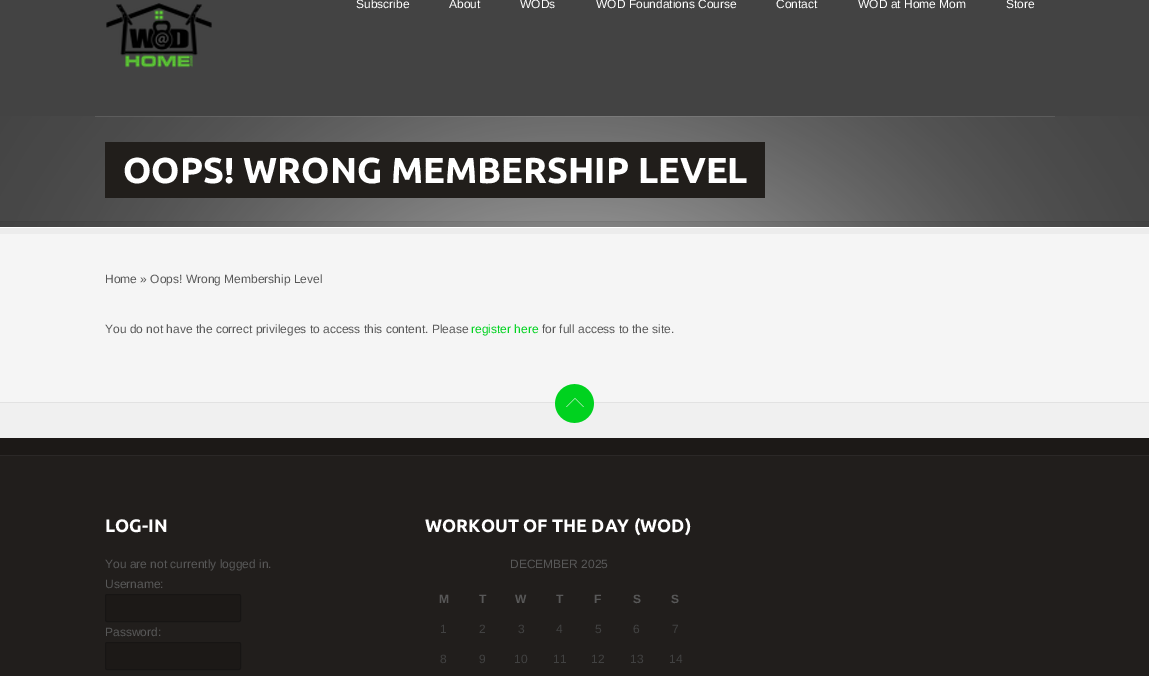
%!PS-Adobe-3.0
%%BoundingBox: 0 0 1149 676
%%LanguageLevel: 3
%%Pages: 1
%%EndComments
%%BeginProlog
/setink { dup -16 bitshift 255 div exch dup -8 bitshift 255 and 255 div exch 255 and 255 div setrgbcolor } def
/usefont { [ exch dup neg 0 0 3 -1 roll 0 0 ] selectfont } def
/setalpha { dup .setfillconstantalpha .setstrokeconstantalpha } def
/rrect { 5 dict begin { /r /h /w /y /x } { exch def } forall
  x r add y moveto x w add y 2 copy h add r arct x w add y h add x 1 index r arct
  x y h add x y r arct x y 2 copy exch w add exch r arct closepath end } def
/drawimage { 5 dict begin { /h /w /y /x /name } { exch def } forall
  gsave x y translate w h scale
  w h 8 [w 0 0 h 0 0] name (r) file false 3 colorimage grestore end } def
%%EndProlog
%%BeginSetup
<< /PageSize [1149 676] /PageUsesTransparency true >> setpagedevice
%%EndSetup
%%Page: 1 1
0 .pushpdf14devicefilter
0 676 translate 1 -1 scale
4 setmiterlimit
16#F5F5F5 setink
0 0 1149 676 rectfill
16#434343 setink
0 0 1149 227 rectfill
(img1.raw) 106 3 106 65 drawimage
/LiberationSans-Regular 12 usefont
16#FFFFFF setink
[
    [(Subscribe) 356 8]
    [(About) 449 8]
    [(WODs) 520 8]
    [(WOD Foundations Course) 596 8]
    [(Contact) 776 8]
    [(WOD at Home Mom) 858 8]
    [(Store) 1006 8]
] { aload pop moveto show } forall
(img2.raw) 0 116 1149 111 drawimage
(img3.raw) 0 221 1149 13 drawimage
0.1 setalpha
95 116 960 1 rectfill
1 setalpha
16#211E1B setink
105 142 660 56 rectfill
/Ubuntu-Bold 36 usefont
16#FFFFFF setink
123 183 moveto (OOPS! WRONG MEMBERSHIP LEVEL) show
/LiberationSans-Regular 12 usefont
16#585858 setink
105 283 moveto (Home » Oops! Wrong Membership Level) show
105 333 moveto (You do not have the correct privileges to access this content. Please) show
16#00D21F setink
471 333 moveto (register here) show
16#585858 setink
542 333 moveto (for full access to the site.) show
(img4.raw) 0 384 1149 54 drawimage
16#00D21F setink
555 384 39 39 rectfill
(img5.raw) 555 384 39 39 drawimage
[
    [0 438 1149 17 16#1C1917]
    [0 455 1149 1 16#2B2827]
    [0 456 1149 220 16#211E1C]
] { aload pop setink rectfill } forall
/Ubuntu-Bold 18 usefont
16#FFFFFF setink
105 532 moveto (LOG-IN) show
/LiberationSans-Regular 12 usefont
16#585858 setink
105 568 moveto (You are not currently logged in.) show
105 588 moveto (Username:) show
16#1C1917 setink
105.5 594.5 135 27 1.5 rrect gsave fill grestore
16#171514 setink
stroke
16#585858 setink
105 636 moveto (Password:) show
16#1C1917 setink
105.5 642.5 135 27 1.5 rrect gsave fill grestore
16#171514 setink
stroke
/Ubuntu-Bold 18 usefont
16#FFFFFF setink
425 532 moveto (WORKOUT OF THE DAY \(WOD\)) show
/LiberationSans-Regular 12 usefont
16#585858 setink
510 568 moveto (DECEMBER 2025) show
/LiberationSans-Bold 12 usefont
[
    [(M) 439 603]
    [(T) 479 603]
    [(W) 515 603]
    [(T) 556 603]
    [(F) 594 603]
    [(S) 633 603]
    [(S) 671 603]
] { aload pop moveto show } forall
/LiberationSans-Regular 12 usefont
16#414141 setink
[
    [(1) 440 633]
    [(2) 479 633]
    [(3) 518 633]
    [(4) 556 633]
    [(5) 595 633]
    [(6) 633 633]
    [(7) 672 633]
    [(8) 440 663]
    [(9) 479 663]
    [(10) 514 663]
    [(11) 553 663]
    [(12) 591 663]
    [(13) 630 663]
    [(14) 669 663]
] { aload pop moveto show } forall
.poppdf14devicefilter showpage
%%EOF
